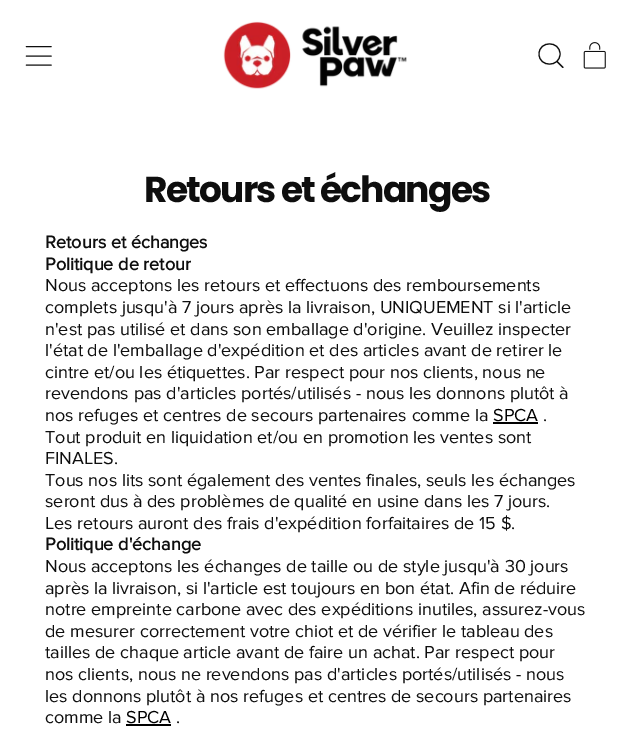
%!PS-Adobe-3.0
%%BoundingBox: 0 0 633 747
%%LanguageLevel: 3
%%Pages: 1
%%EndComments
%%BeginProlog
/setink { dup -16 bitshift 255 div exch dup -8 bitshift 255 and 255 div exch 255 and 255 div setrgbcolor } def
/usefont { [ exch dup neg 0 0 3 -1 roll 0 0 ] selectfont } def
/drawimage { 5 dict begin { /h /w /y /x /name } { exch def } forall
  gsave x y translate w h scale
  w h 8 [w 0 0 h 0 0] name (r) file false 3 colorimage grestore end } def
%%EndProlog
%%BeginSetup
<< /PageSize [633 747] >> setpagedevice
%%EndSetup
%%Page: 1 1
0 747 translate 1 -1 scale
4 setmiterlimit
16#FFFFFF setink
0 0 633 747 rectfill
16#0E0E0E setink
1.1 setlinewidth
1 setlinecap
1 setlinejoin
51 65 moveto 26.5 65 lineto 51 56 moveto 26.5 56 lineto 51 46.5 moveto 26.5 46.5 lineto stroke
(img1.raw) 223 21 184 68 drawimage
539 54 moveto 539 67.5 560 67.5 560 54 curveto 560 40.5 539 40.5 539 54 curveto closepath 563 67.5 moveto 557 61.5 lineto stroke
(img2.raw) 583 42 23 27 drawimage
/Poppins-Bold 36 usefont
144 202 moveto -1.75 0 (Retours et échanges) ashow
/ProximaNova-Bold 18 usefont
45 248 moveto (Retours et échanges) show
45 270 moveto (Politique de retour) show
/ProximaNova-Regular 18 usefont
[
    [(Nous acceptons les retours et effectuons des remboursements) 45 291]
    [(complets jusqu'à 7 jours après la livraison, UNIQUEMENT si l'article) 45 313]
    [(n'est pas utilisé et dans son emballage d'origine. Veuillez inspecter) 45 335]
    [(l'état de l'emballage d'expédition et des articles avant de retirer le) 45 356]
    [(cintre et/ou les étiquettes. Par respect pour nos clients, nous ne) 45 378]
    [(revendons pas d'articles portés/utilisés - nous les donnons plutôt à) 45 399]
    [(nos refuges et centres de secours partenaires comme la) 45 421]
] { aload pop moveto show } forall
16#000000 setink
493 421 moveto (SPCA) show
16#0E0E0E setink
543 421 moveto (.) show
16#000000 setink
493 422 45 2 rectfill
16#0E0E0E setink
[
    [(Tout produit en liquidation et/ou en promotion les ventes sont) 45 443]
    [(FINALES.) 45 464]
    [(Tous nos lits sont également des ventes finales, seuls les échanges) 45 486]
    [(seront dus à des problèmes de qualité en usine dans les 7 jours.) 45 507]
    [(Les retours auront des frais d'expédition forfaitaires de 15 $.) 45 529]
] { aload pop moveto show } forall
/ProximaNova-Bold 18 usefont
45 550 moveto (Politique d'échange) show
/ProximaNova-Regular 18 usefont
[
    [(Nous acceptons les échanges de taille ou de style jusqu'à 30 jours) 45 572]
    [(après la livraison, si l'article est toujours en bon état. Afin de réduire) 45 594]
    [(notre empreinte carbone avec des expéditions inutiles, assurez-vous) 45 615]
    [(de mesurer correctement votre chiot et de vérifier le tableau des) 45 637]
    [(tailles de chaque article avant de faire un achat. Par respect pour) 45 658]
    [(nos clients, nous ne revendons pas d'articles portés/utilisés - nous) 45 680]
    [(les donnons plutôt à nos refuges et centres de secours partenaires) 45 702]
    [(comme la) 45 723]
] { aload pop moveto show } forall
16#000000 setink
126 723 moveto (SPCA) show
16#0E0E0E setink
176 723 moveto (.) show
16#000000 setink
126 724 45 2 rectfill
showpage
%%EOF
